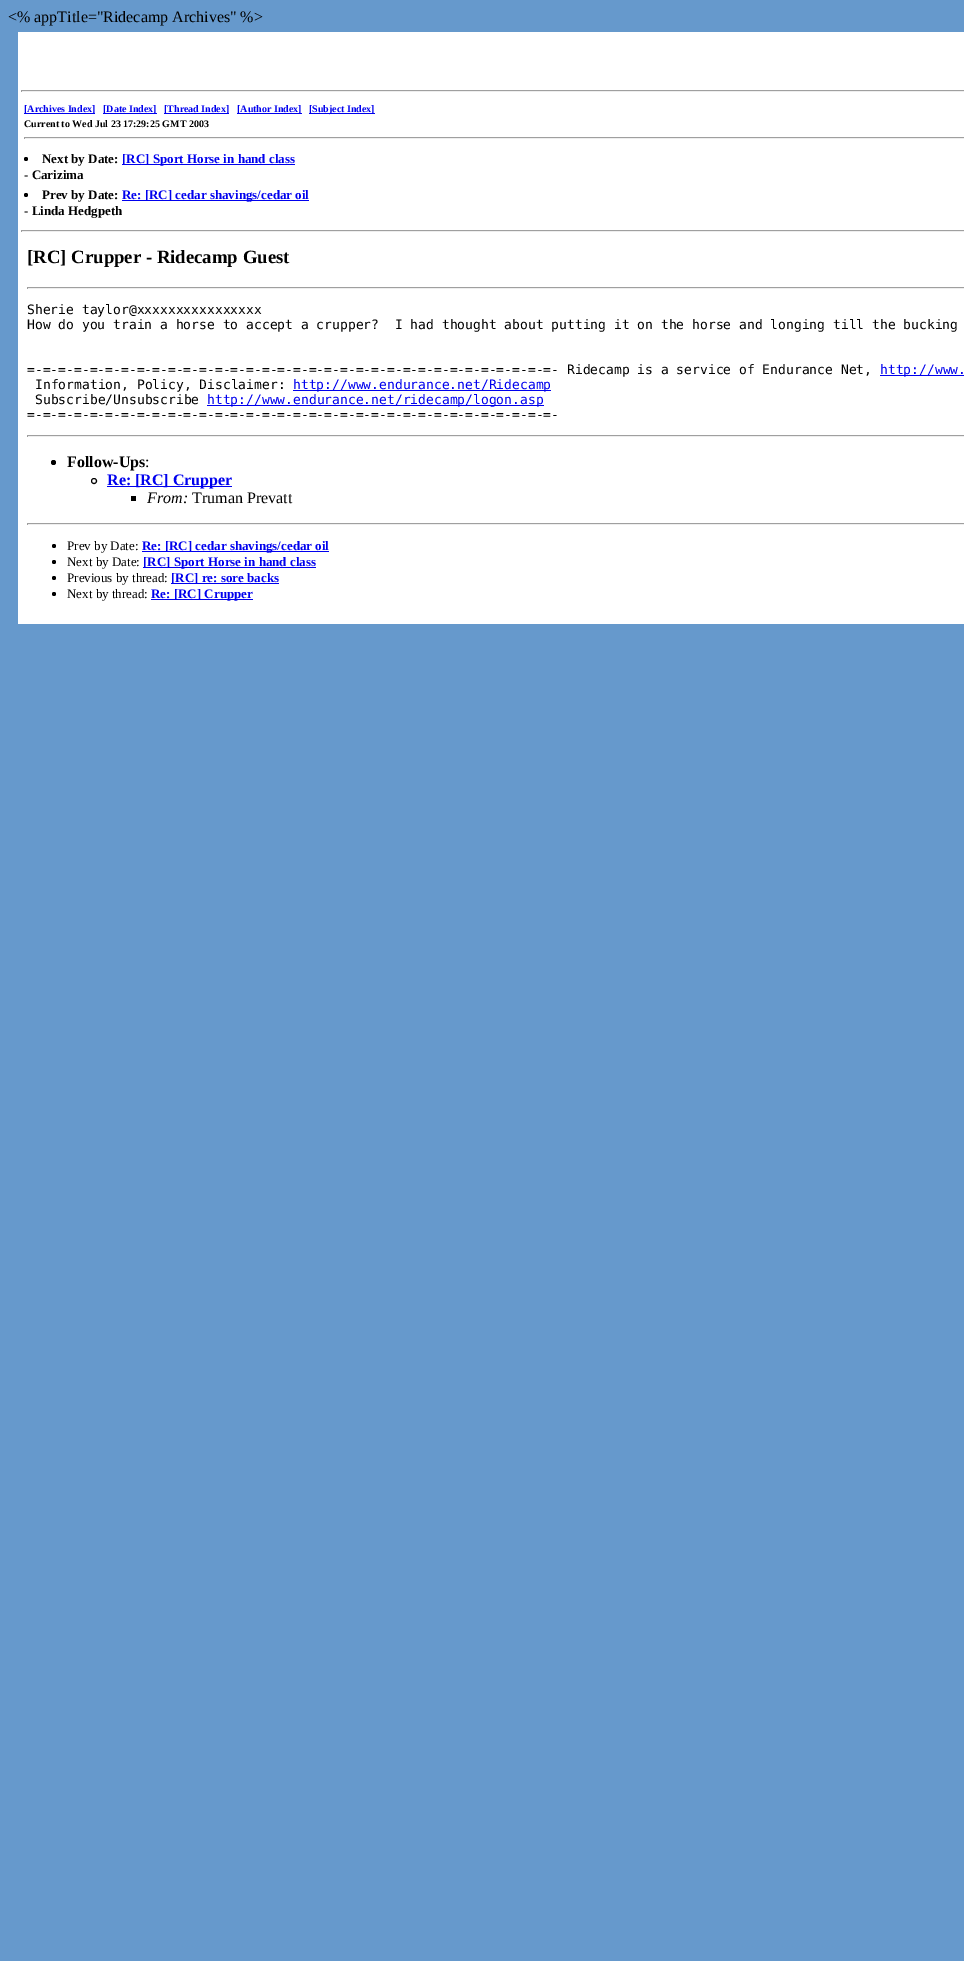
%!PS-Adobe-3.0
%%BoundingBox: 0 0 964 1961
%%LanguageLevel: 3
%%Pages: 1
%%EndComments
%%BeginProlog
/setink { dup -16 bitshift 255 div exch dup -8 bitshift 255 and 255 div exch 255 and 255 div setrgbcolor } def
/usefont { [ exch dup neg 0 0 3 -1 roll 0 0 ] selectfont } def
/disc { newpath 0 360 arc closepath } def
%%EndProlog
%%BeginSetup
<< /PageSize [964 1961] >> setpagedevice
%%EndSetup
%%Page: 1 1
0 1961 translate 1 -1 scale
4 setmiterlimit
16#6699CC setink
0 0 964 1961 rectfill
/LiberationSerif-Regular 16 usefont
16#000000 setink
8 22 moveto (<% appTitle="Ridecamp Archives" %>) show
[
    [18 32 946 592 16#FFFFFF]
    [21 90 943 1 16#9F9F9F]
    [21 91 943 1 16#EEEEEE]
    [21 90 1 2 16#9F9F9F]
    [24 113 71 1 16#0000EE]
] { aload pop setink rectfill } forall
/LiberationSerif-Bold 10 usefont
24 112 moveto ([Archives Index]) show
103 113 54 1 rectfill
103 112 moveto ([Date Index]) show
164 113 65 1 rectfill
164 112 moveto ([Thread Index]) show
237 113 65 1 rectfill
237 112 moveto ([Author Index]) show
309 113 66 1 rectfill
309 112 moveto ([Subject Index]) show
16#000000 setink
24 127 moveto (Current to Wed Jul 23 17:29:25 GMT 2003) show
[
    [24 137 940 1 16#9F9F9F]
    [24 138 940 1 16#EEEEEE]
    [24 137 1 2 16#9F9F9F]
] { aload pop setink rectfill } forall
16#000000 setink
26 159 2 disc fill
/LiberationSerif-Bold 13 usefont
42 163 moveto (Next by Date:) show
16#0000EE setink
122 164 173 1 rectfill
122 163 moveto ([RC] Sport Horse in hand class) show
16#000000 setink
24 179 moveto (- Carizima) show
26 195 2 disc fill
42 199 moveto (Prev by Date:) show
16#0000EE setink
122 200 187 1 rectfill
122 199 moveto (Re: [RC] cedar shavings/cedar oil) show
16#000000 setink
24 215 moveto (- Linda Hedgpeth) show
[
    [21 230 943 1 16#9F9F9F]
    [21 231 943 1 16#EEEEEE]
    [21 230 1 2 16#9F9F9F]
] { aload pop setink rectfill } forall
/LiberationSerif-Bold 18.75 usefont
16#000000 setink
27 263 moveto ([RC] Crupper - Ridecamp Guest) show
[
    [27 287 937 1 16#9F9F9F]
    [27 288 937 1 16#EEEEEE]
    [27 287 1 2 16#9F9F9F]
] { aload pop setink rectfill } forall
/DejaVuSansMono-Regular 13 usefont
16#000000 setink
[
    [(Sherie taylor@xxxxxxxxxxxxxxxx) 27 314]
    [(How do you train a horse to accept a crupper?  I had thought about putting it on the horse and longing till the bucking) 27 329]
    [(=-=-=-=-=-=-=-=-=-=-=-=-=-=-=-=-=-=-=-=-=-=-=-=-=-=-=-=-=-=-=-=-=-=- Ridecamp is a service of Endurance Net,) 27 374]
] { aload pop moveto show } forall
16#0000EE setink
880 375 84 1 rectfill
880 374 moveto (http://www.) show
16#000000 setink
35 389 moveto (Information, Policy, Disclaimer:) show
16#0000EE setink
293 390 258 1 rectfill
293 389 moveto (http://www.endurance.net/Ridecamp) show
16#000000 setink
35 404 moveto (Subscribe/Unsubscribe) show
16#0000EE setink
207 405 337 1 rectfill
207 404 moveto (http://www.endurance.net/ridecamp/logon.asp) show
16#000000 setink
27 419 moveto (=-=-=-=-=-=-=-=-=-=-=-=-=-=-=-=-=-=-=-=-=-=-=-=-=-=-=-=-=-=-=-=-=-=-) show
[
    [27 435 937 1 16#9F9F9F]
    [27 436 937 1 16#EEEEEE]
    [27 435 1 2 16#9F9F9F]
] { aload pop setink rectfill } forall
16#000000 setink
53.5 462.5 2.5 disc fill
/LiberationSerif-Bold 16 usefont
67 467 moveto (Follow-Ups) show
/LiberationSerif-Regular 16 usefont
145 467 moveto (:) show
94 481 2.5 disc stroke
16#0000EE setink
107 486 125 1 rectfill
/LiberationSerif-Bold 16 usefont
107 485 moveto (Re: [RC] Crupper) show
16#000000 setink
131 496 5 5 rectfill
/LiberationSerif-Italic 16 usefont
147 503 moveto (From:) show
/LiberationSerif-Regular 16 usefont
192 503 moveto (Truman Prevatt) show
[
    [27 523 937 1 16#9F9F9F]
    [27 524 937 1 16#EEEEEE]
    [27 523 1 2 16#9F9F9F]
] { aload pop setink rectfill } forall
16#000000 setink
54 546 2 disc fill
/LiberationSerif-Regular 13 usefont
67 550 moveto (Prev by Date:) show
16#0000EE setink
142 551 187 1 rectfill
/LiberationSerif-Bold 13 usefont
142 550 moveto (Re: [RC] cedar shavings/cedar oil) show
16#000000 setink
54 562 2 disc fill
/LiberationSerif-Regular 13 usefont
67 566 moveto (Next by Date:) show
16#0000EE setink
143 567 173 1 rectfill
/LiberationSerif-Bold 13 usefont
143 566 moveto ([RC] Sport Horse in hand class) show
16#000000 setink
54 578 2 disc fill
/LiberationSerif-Regular 13 usefont
67 582 moveto (Previous by thread:) show
16#0000EE setink
171 583 108 1 rectfill
/LiberationSerif-Bold 13 usefont
171 582 moveto ([RC] re: sore backs) show
16#000000 setink
54 594 2 disc fill
/LiberationSerif-Regular 13 usefont
67 598 moveto (Next by thread:) show
16#0000EE setink
151 599 102 1 rectfill
/LiberationSerif-Bold 13 usefont
151 598 moveto (Re: [RC] Crupper) show
showpage
%%EOF
